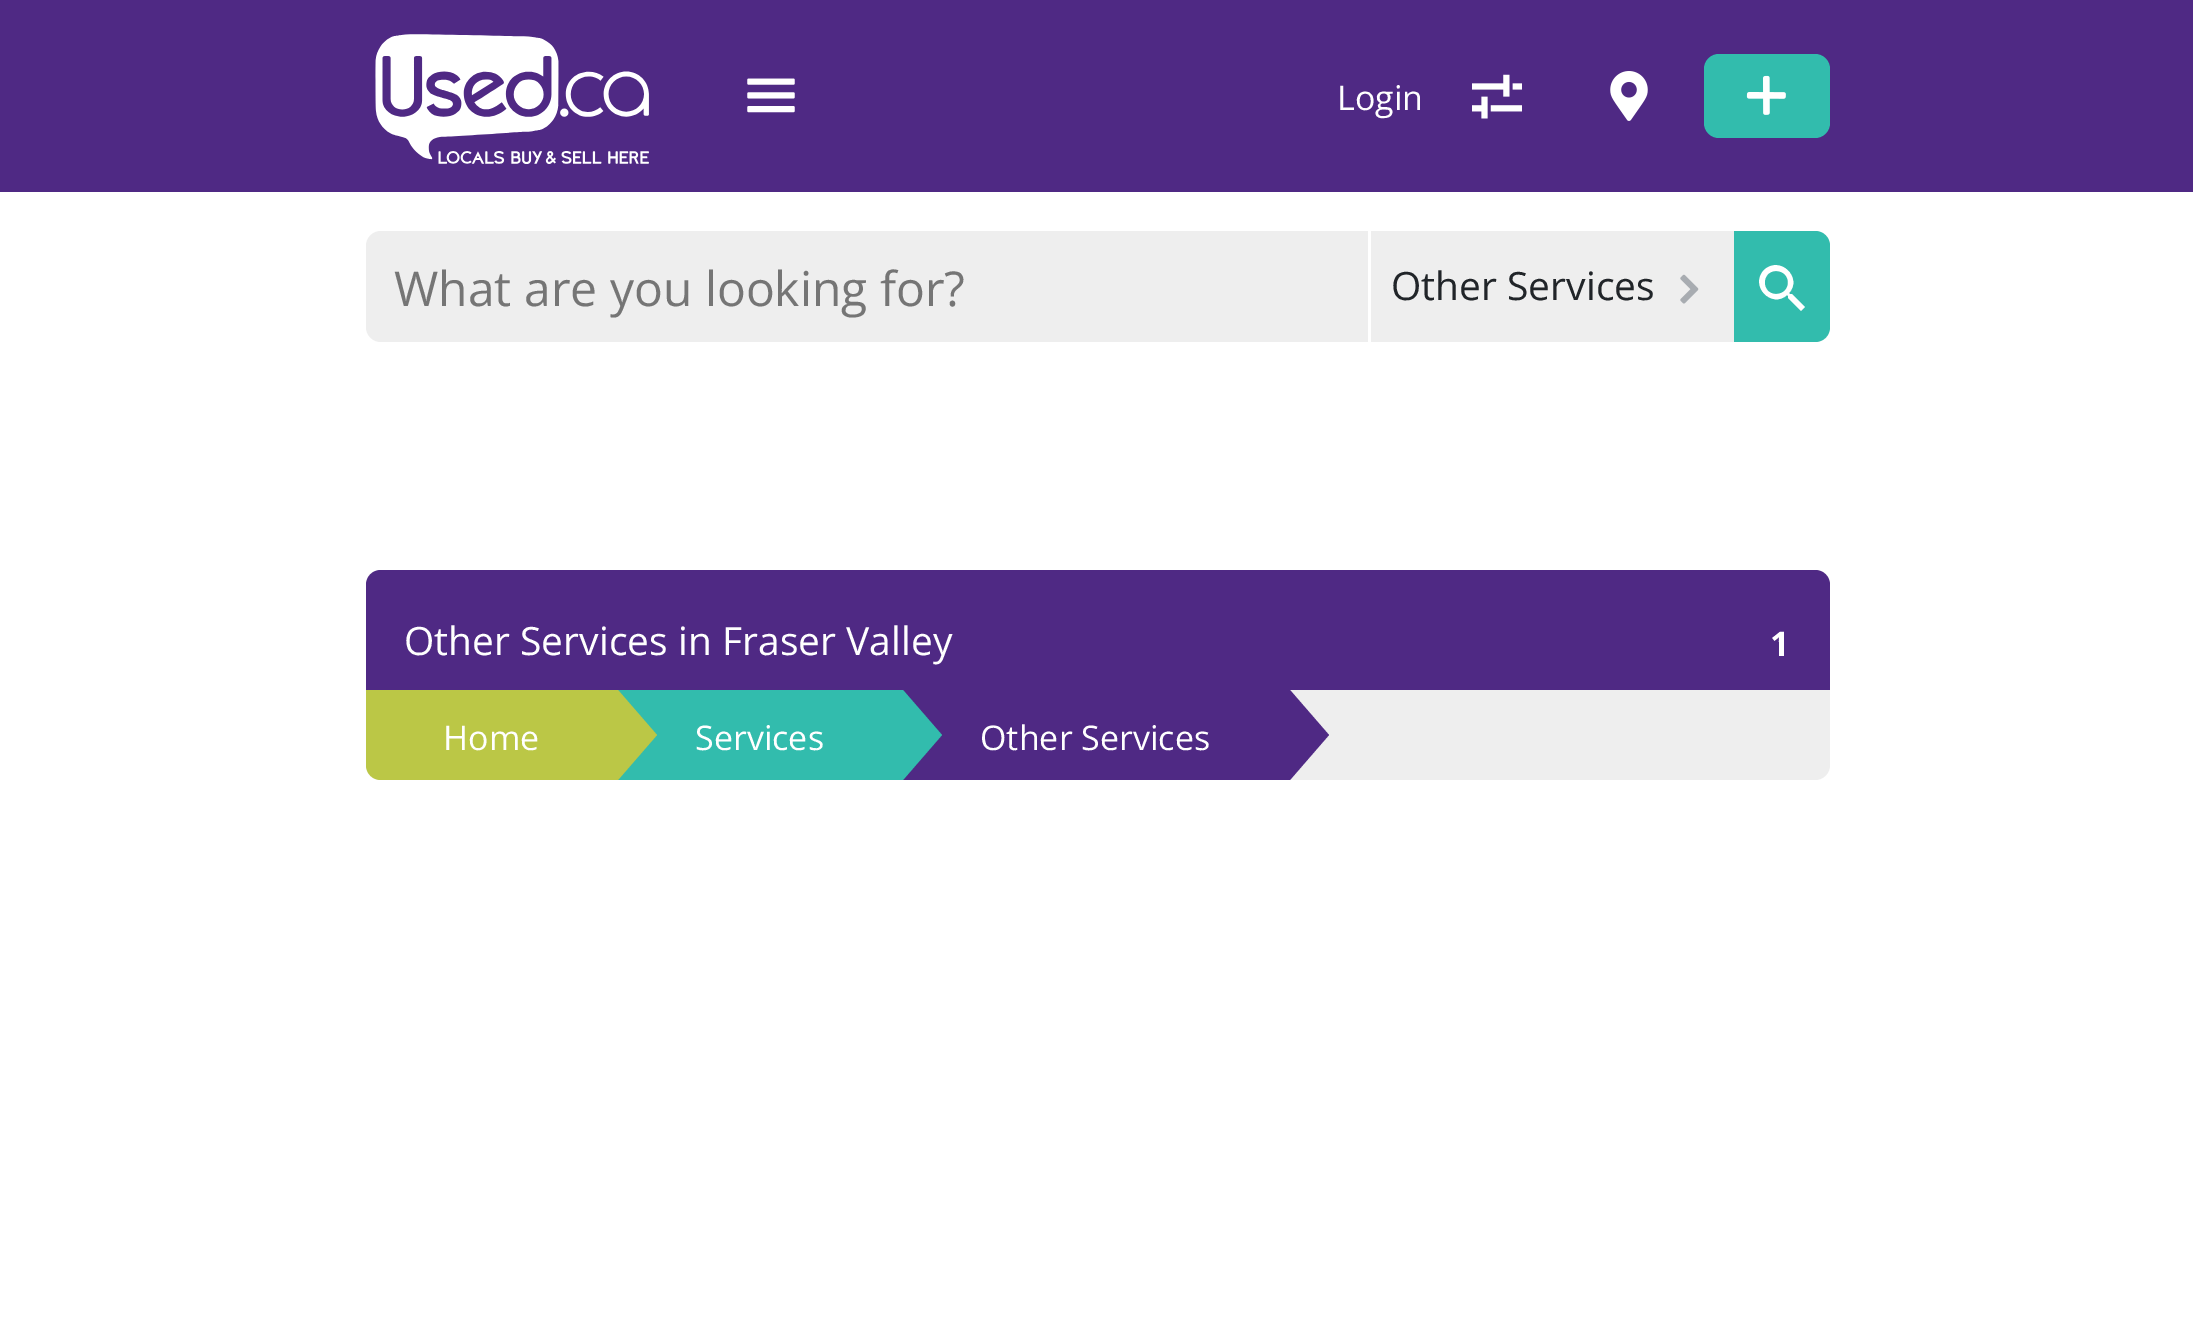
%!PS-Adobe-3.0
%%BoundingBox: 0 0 2193 1342
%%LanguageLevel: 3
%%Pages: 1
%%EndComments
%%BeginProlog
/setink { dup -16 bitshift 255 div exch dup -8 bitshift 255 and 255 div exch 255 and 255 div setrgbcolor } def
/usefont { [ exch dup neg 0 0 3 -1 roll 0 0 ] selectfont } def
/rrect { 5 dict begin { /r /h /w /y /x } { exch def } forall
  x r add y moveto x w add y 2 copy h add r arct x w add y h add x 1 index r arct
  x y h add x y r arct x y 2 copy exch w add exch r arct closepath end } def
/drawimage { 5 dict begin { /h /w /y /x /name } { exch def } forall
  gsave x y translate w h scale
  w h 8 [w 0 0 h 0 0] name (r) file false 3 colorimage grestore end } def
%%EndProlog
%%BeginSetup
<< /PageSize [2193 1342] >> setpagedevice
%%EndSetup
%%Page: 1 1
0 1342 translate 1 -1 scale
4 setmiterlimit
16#FFFFFF setink
0 0 2193 1342 rectfill
16#4F2984 setink
0 0 2193 192 rectfill
(img1.raw) 375 34 274 130 drawimage
(img2.raw) 747 78 48 35 drawimage
/OpenSans-Regular 34 usefont
16#FFFFFF setink
1337 110 moveto (Login) show
(img3.raw) 1472 74 50 45 drawimage
(img4.raw) 1610 71 38 50 drawimage
16#32BCAD setink
1704 54 126 84 15 rrect fill
(img5.raw) 1746 75 40 40 drawimage
16#EEEEEE setink
366 231 1464 111 15 rrect fill
/OpenSans-Regular 48 usefont
16#757575 setink
394 306 moveto (What are you looking for?) show
16#FFFFFF setink
1368 231 3 111 rectfill
/OpenSans-Regular 39 usefont
16#212529 setink
1391 300 moveto (Other Services) show
(img6.raw) 1680 274 19 30 drawimage
16#32BCAD setink
1734 231 moveto 1815 231 lineto 1823.5 231 1830 237.5 1830 246 curveto 1830 327 lineto 1830 335.5 1823.5 342 1815 342 curveto 1734 342 lineto closepath fill
16#FFFFFF setink
1792 294 moveto 1790 294 lineto 1789 293 lineto 1803 278 1780 255 1764 270 curveto 1749 286 1772 309 1787 295 curveto 1788 296 lineto 1788 298 lineto 1801 311 lineto 1805 307 lineto closepath 1776 294 moveto 1761 294 1761 271 1776 271 curveto 1792 271 1792 294 1776 294 curveto closepath eofill
16#EEEEEE setink
366 570 1464 210 15 rrect fill
16#4F2984 setink
381 570 moveto 1815 570 lineto 1823.5 570 1830 576.5 1830 585 curveto 1830 690 lineto 366 690 lineto 366 585 lineto 366 576.5 372.5 570 381 570 curveto closepath fill
16#FFFFFF setink
404 655 moveto (Other Services in Fraser Valley) show
/OpenSans-Bold 34 usefont
1770 656 moveto (1) show
16#BBC746 setink
366 690 moveto 618 690 lineto 618 780 lineto 381 780 lineto 372.5 780 366 773.5 366 765 curveto closepath fill
/OpenSans-Regular 34 usefont
16#FFFFFF setink
443 750 moveto (Home) show
16#32BCAD setink
618 690 285 90 rectfill
16#BBC746 setink
618 780 moveto 618 690 lineto 657 735 lineto closepath fill
16#FFFFFF setink
695 750 moveto (Services) show
16#4F2984 setink
903 690 387 90 rectfill
16#32BCAD setink
903 780 moveto 903 690 lineto 942 735 lineto closepath fill
16#FFFFFF setink
980 750 moveto (Other Services) show
16#4F2984 setink
1290 780 moveto 1290 690 lineto 1329 735 lineto closepath fill
showpage
%%EOF
